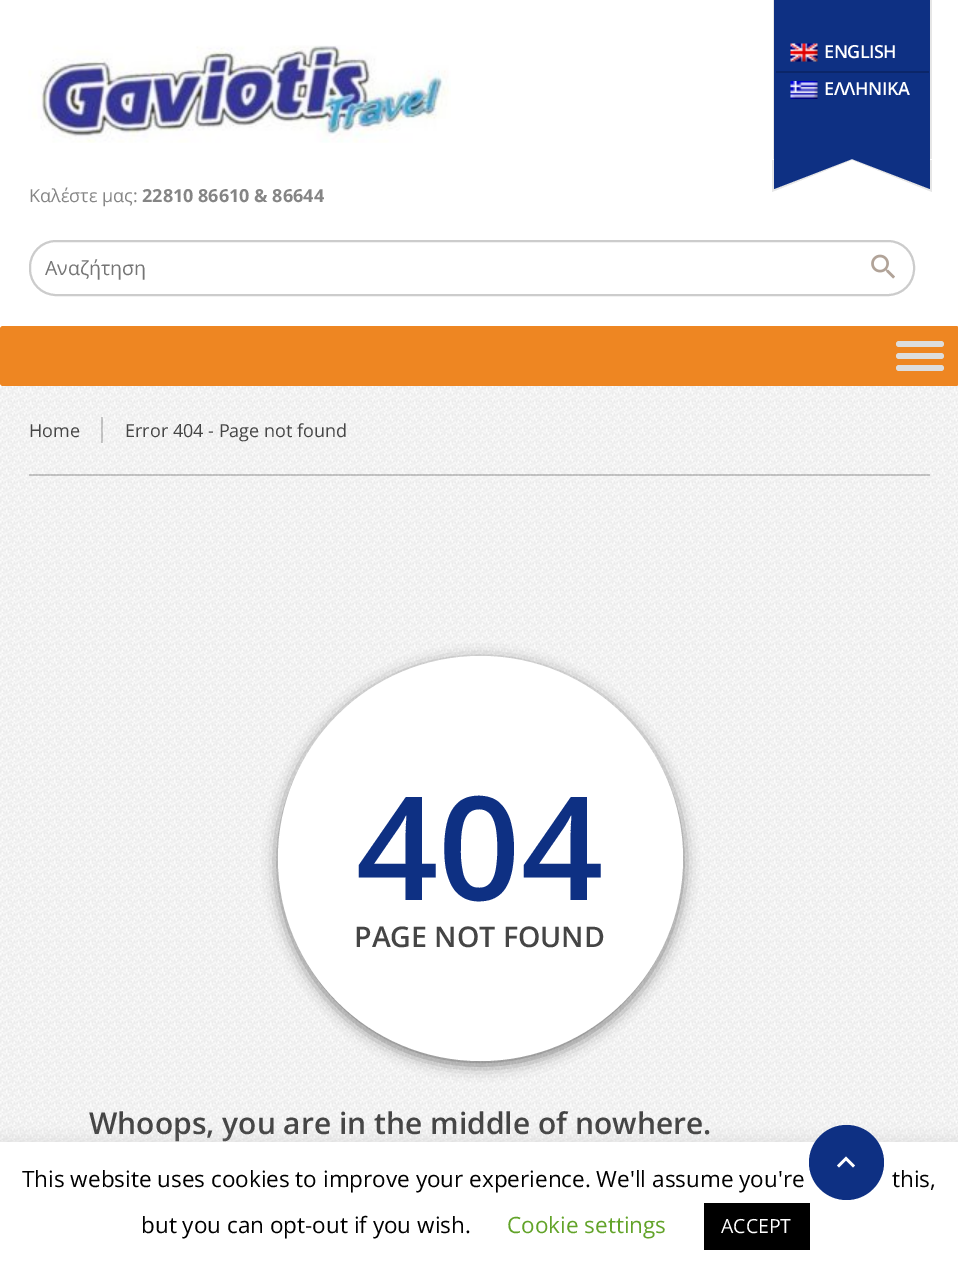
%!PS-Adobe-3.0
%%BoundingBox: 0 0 958 1274
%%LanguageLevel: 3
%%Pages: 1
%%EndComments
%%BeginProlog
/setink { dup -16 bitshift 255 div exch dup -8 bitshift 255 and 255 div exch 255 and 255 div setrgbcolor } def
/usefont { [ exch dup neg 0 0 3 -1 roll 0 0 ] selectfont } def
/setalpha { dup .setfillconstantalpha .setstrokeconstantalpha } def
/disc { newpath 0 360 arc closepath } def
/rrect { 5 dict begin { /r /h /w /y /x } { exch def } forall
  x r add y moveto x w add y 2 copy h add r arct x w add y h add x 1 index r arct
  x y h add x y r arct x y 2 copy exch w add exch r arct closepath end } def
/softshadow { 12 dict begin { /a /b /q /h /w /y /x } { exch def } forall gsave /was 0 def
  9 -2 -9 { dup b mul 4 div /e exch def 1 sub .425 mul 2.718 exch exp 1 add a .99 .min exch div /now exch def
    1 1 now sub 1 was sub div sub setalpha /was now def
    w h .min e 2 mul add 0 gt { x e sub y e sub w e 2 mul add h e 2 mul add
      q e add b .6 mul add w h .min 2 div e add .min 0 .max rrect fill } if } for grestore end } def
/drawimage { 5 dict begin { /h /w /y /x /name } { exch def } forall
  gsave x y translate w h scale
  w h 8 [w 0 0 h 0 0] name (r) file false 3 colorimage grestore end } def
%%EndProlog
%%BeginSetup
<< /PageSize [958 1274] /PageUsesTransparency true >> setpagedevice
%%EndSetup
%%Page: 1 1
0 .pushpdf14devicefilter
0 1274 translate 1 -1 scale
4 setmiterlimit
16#FFFFFF setink
0 0 958 1274 rectfill
(img1.raw) 0 386 958 756 drawimage
(img2.raw) 28 45 423 98 drawimage
[
    [773 0 1 159 16#E6E6E6]
    [930 0 2 159 16#E6E6E6]
    [774 0 156 159 16#0E3083]
    [776 71 153 2 16#0B2669]
] { aload pop setink rectfill } forall
(img3.raw) 790 43 28 19 drawimage
/OpenSans-SemiBold 18 usefont
16#FFFFFF setink
824 58 moveto -0.5 0 (ENGLISH) ashow
(img4.raw) 790 81 28 18 drawimage
824 95 moveto -0.5 0 (ΕΛΛΗΝΙΚΑ) ashow
16#E6E6E6 setink
772 160 moveto 852 160 lineto 772 192 lineto closepath fill
932 160 moveto 932 192 lineto 852 160 lineto closepath fill
16#0E3083 setink
774 159 moveto 852 159 lineto 774 189 lineto closepath fill
930 159 moveto 930 189 lineto 852 159 lineto closepath fill
/OpenSans-Regular 18 usefont
16#858585 setink
29 202 moveto (Καλέστε μας:) show
/OpenSans-Bold 18 usefont
142 202 moveto (22810 86610 & 86644) show
16#CCCCCC setink
2 setlinewidth
30 241 884 54 26 rrect stroke
/OpenSans-Regular 19.5 usefont
16#757575 setink
45 275 moveto (Αναζήτηση) show
(img5.raw) 871 254 24 25 drawimage
16#EE8622 setink
0 326 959 60 3 rrect fill
16#DDDDDD setink
896 341 48 6 3 rrect fill
896 353 48 6 3 rrect fill
896 365 48 6 3 rrect fill
0.2 setalpha
16#000000 setink
29 474 901 2 rectfill
/OpenSans-Regular 18 usefont
1 setalpha
16#454545 setink
29 437 moveto (Home) show
0.2 setalpha
16#000000 setink
101 417 2 26 rectfill
1 setalpha
16#454545 setink
125 437 moveto (Error 404 - Page not found) show
16#000000 setink
278 660 405 405 202.5 7.5 0.5 softshadow
16#FFFFFF setink
480.5 858.5 202.5 disc fill
/OpenSans-SemiBold 144 usefont
16#0E3083 setink
356 900 moveto (404) show
/OpenSans-SemiBold 28.5 usefont
16#454545 setink
354 947 moveto (PAGE NOT FOUND) show
/OpenSans-SemiBold 30 usefont
89 1134 moveto (Whoops, you are in the middle of nowhere.) show
16#ACABAB setink
0 1140 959 134 0 7.5 0.3 softshadow
16#FFFFFF setink
0 1142 958 132 rectfill
16#0E3083 setink
846.5 1162.5 37.5 disc fill
16#FFFFFF setink
839 1167.5 moveto 837 1165.5 lineto 846 1156.5 lineto 855 1165.5 lineto 853 1167.5 lineto 846 1160.5 lineto closepath fill
/OpenSans-Regular 22.5 usefont
16#000000 setink
[
    [(This website uses cookies to improve your experience. We'll assume you're) 22 1187]
    [(this,) 892 1187]
    [(but you can opt-out if you wish.) 141 1233]
] { aload pop moveto show } forall
16#62A329 setink
507 1233 moveto (Cookie settings) show
16#000000 setink
704 1203 106 47 rectfill
/OpenSans-Regular 19.5 usefont
16#FFFFFF setink
721 1233 moveto (ACCEPT) show
.poppdf14devicefilter showpage
%%EOF
